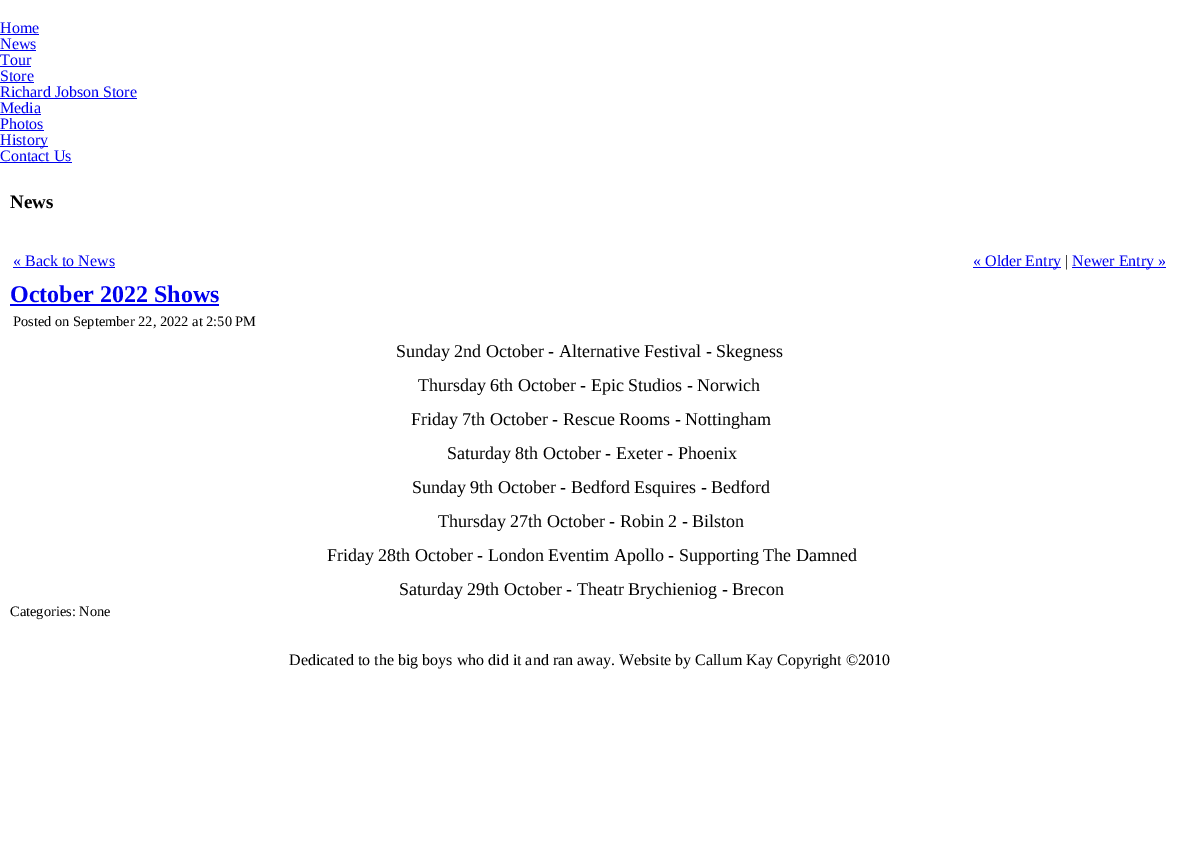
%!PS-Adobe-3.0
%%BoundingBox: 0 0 1179 861
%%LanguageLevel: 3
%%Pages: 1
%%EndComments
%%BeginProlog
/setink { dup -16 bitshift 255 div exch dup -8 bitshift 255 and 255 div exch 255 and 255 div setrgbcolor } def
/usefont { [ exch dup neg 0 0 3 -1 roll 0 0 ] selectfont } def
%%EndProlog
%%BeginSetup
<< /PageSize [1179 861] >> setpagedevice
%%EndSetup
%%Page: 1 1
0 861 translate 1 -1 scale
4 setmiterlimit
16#FFFFFF setink
0 0 1179 861 rectfill
/LiberationSerif-Regular 16 usefont
16#0000EE setink
0 33 moveto (Home) show
0 34 39 1 rectfill
0 49 moveto (News) show
0 50 36 1 rectfill
0 65 moveto (Tour) show
0 66 31 1 rectfill
0 81 moveto (Store) show
0 82 34 1 rectfill
0 97 moveto (Richard Jobson Store) show
0 98 137 1 rectfill
0 113 moveto (Media) show
0 114 41 1 rectfill
0 129 moveto (Photos) show
0 130 44 1 rectfill
0 146 48 1 rectfill
0 145 moveto (History) show
0 161 moveto (Contact Us) show
0 162 72 1 rectfill
/LiberationSerif-Bold 19 usefont
16#000000 setink
10 208 moveto (News) show
/LiberationSerif-Regular 16 usefont
16#0000EE setink
13 266 moveto (« Back to News) show
13 267 102 1 rectfill
973 267 88 1 rectfill
973 266 moveto (« Older Entry) show
16#000000 setink
1065 266 moveto (|) show
16#0000EE setink
1072 267 94 1 rectfill
1072 266 moveto (Newer Entry ») show
/LiberationSerif-Bold 24 usefont
10 302 moveto (October 2022 Shows) show
10 304 209 2 rectfill
/LiberationSerif-Regular 14.4 usefont
16#000000 setink
13 326 moveto (Posted on September 22, 2022 at 2:50 PM) show
/LiberationSerif-Regular 18 usefont
[
    [(Sunday 2nd October - Alternative Festival - Skegness) 396 357]
    [(Thursday 6th October - Epic Studios - Norwich) 418 391]
    [(Friday 7th October - Rescue Rooms - Nottingham) 411 425]
    [(Saturday 8th October - Exeter - Phoenix) 447 459]
    [(Sunday 9th October - Bedford Esquires - Bedford) 412 493]
    [(Thursday 27th October - Robin 2 - Bilston) 438 527]
    [(Friday 28th October - London Eventim Apollo - Supporting The Damned) 327 561]
    [(Saturday 29th October - Theatr Brychieniog - Brecon) 399 595]
] { aload pop moveto show } forall
/LiberationSerif-Regular 14.4 usefont
10 616 moveto (Categories: None) show
/LiberationSerif-Regular 16 usefont
289 665 moveto (Dedicated to the big boys who did it and ran away. Website by Callum Kay Copyright ©2010) show
showpage
%%EOF
